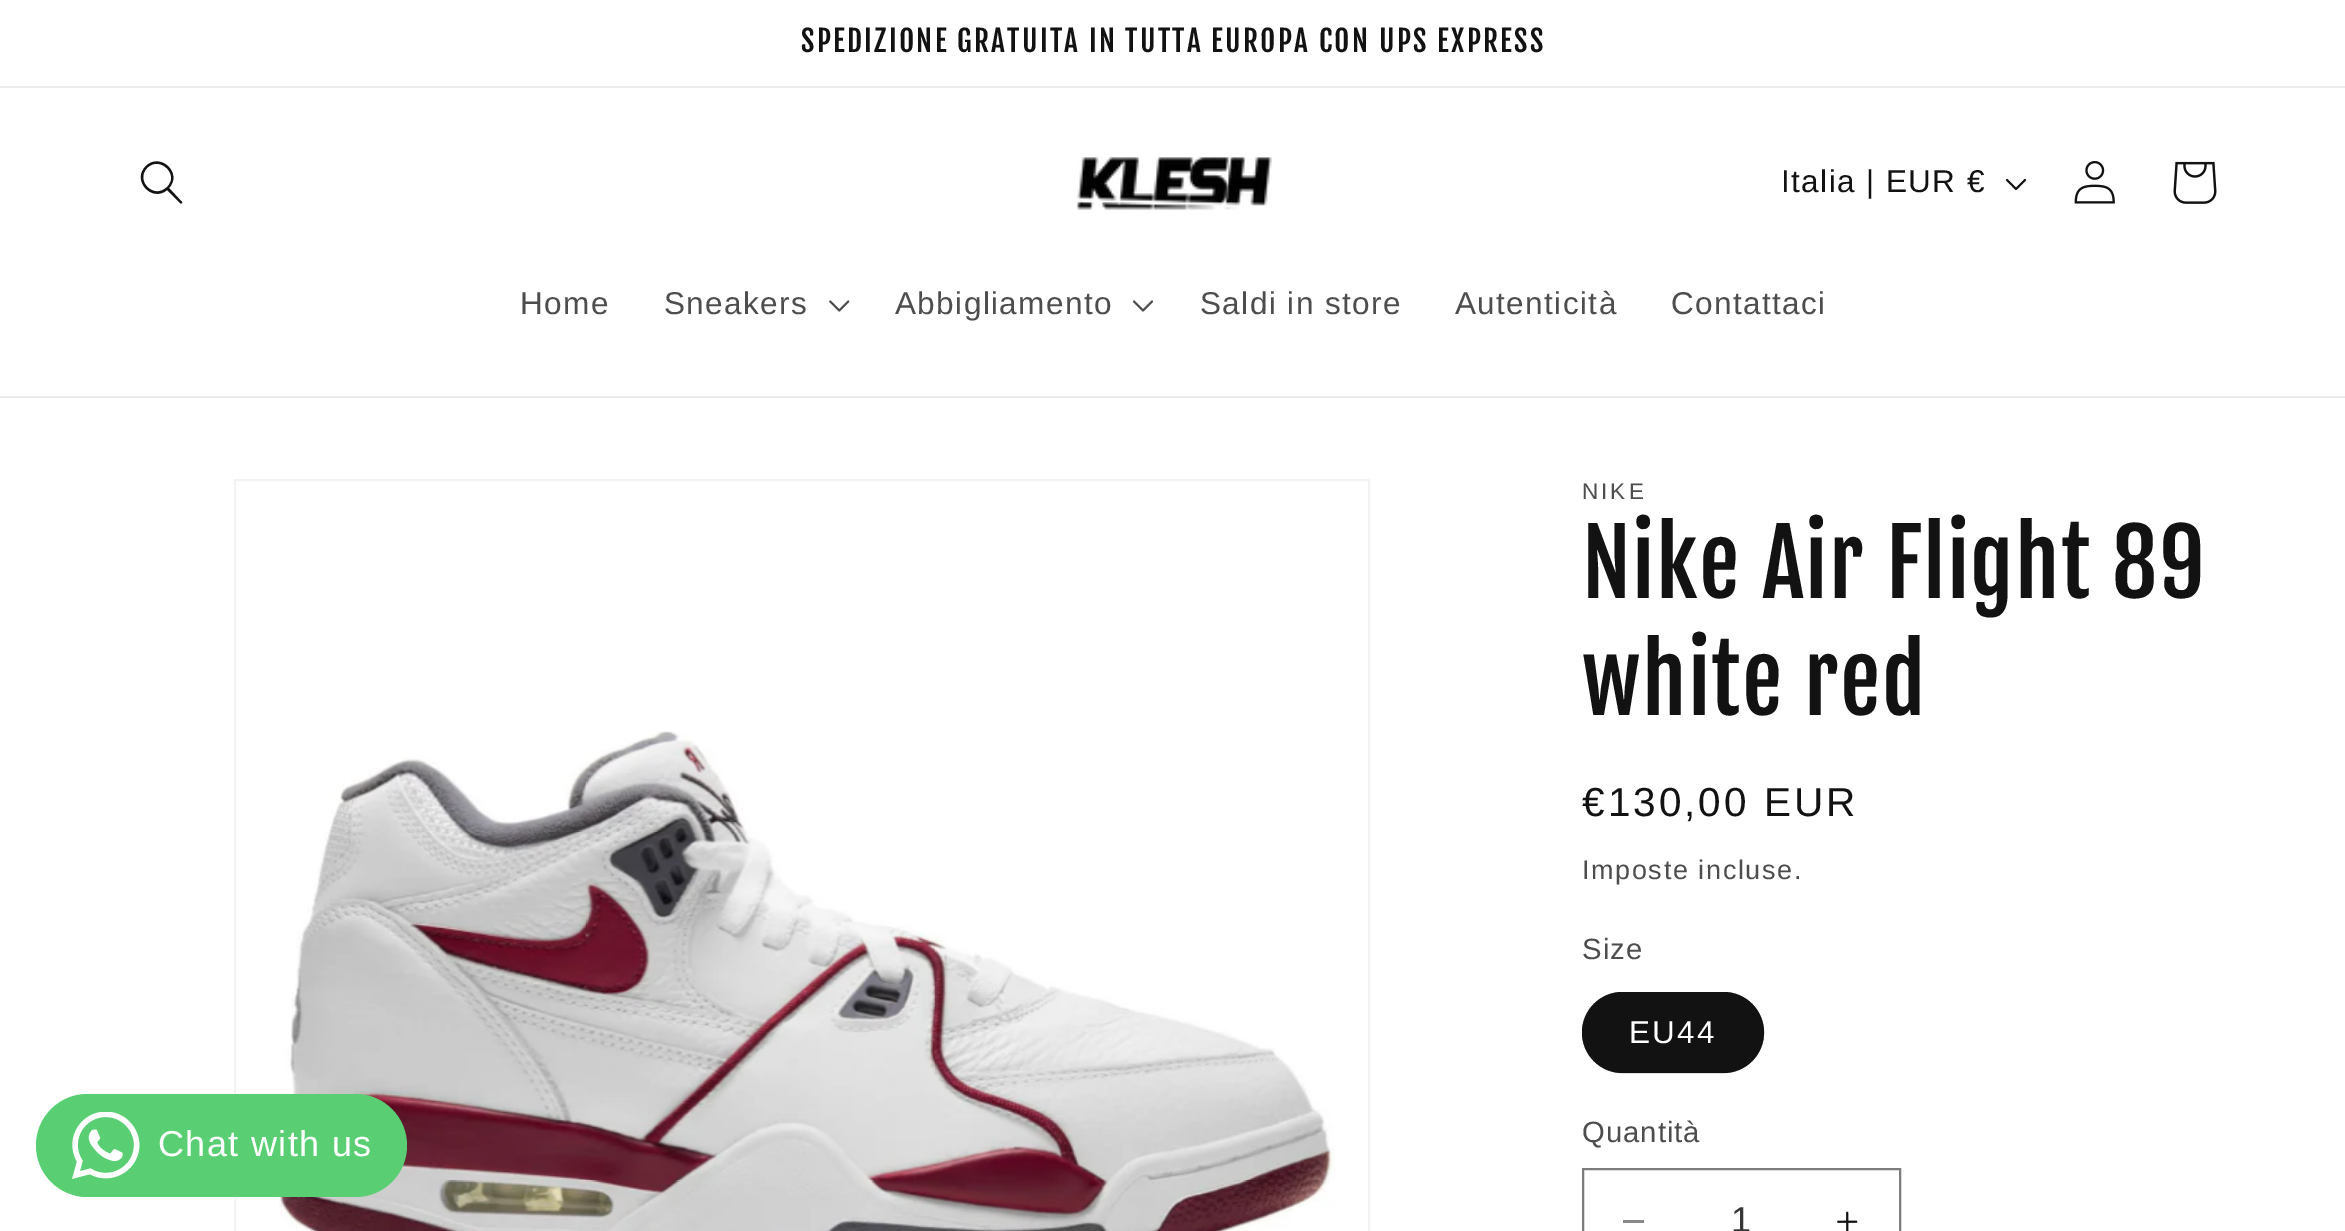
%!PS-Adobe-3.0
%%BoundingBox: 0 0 2345 1231
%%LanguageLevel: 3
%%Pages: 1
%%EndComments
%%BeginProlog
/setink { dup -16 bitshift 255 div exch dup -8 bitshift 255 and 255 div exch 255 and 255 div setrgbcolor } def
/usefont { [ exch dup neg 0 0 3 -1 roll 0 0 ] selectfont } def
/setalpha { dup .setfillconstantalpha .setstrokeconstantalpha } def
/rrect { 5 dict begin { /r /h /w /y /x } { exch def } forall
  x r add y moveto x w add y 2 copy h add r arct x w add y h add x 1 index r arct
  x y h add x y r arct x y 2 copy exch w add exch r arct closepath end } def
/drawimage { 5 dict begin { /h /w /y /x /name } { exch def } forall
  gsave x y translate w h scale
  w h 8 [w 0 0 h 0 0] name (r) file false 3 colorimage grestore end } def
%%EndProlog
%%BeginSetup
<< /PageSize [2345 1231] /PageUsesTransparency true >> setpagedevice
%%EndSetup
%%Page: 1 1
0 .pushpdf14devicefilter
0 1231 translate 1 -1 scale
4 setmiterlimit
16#FFFFFF setink
0 0 2345 1231 rectfill
16#ECECEC setink
0 86 2345 2 rectfill
/FjallaOne-Regular 29.25 usefont
16#121212 setink
801 52 moveto 2.25 0 (SPEDIZIONE GRATUITA IN TUTTA EUROPA CON UPS EXPRESS) ashow
16#ECECEC setink
0 396 2345 2 rectfill
16#121212 setink
167 187 moveto 154 200 135 181 147 168 curveto 160 155 180 175 167 187 curveto 167 190 moveto 152 203 131 180 146 166 curveto 160 152 183 173 169 188 curveto 182 202 lineto 183 203 181 204 180 203 curveto closepath eofill
(img1.raw) 1077 157 195 53 drawimage
/Arimo-Regular 31.5 usefont
1781 192 moveto 1.4 0 (Italia | EUR €) ashow
(img2.raw) 2005 178 22 13 drawimage
(img3.raw) 2074 160 41 44 drawimage
(img4.raw) 2173 161 44 43 drawimage
16#4D4D4D setink
520 314 moveto 1.4 0 (Home) ashow
664 314 moveto 1.4 0 (Sneakers) ashow
(img5.raw) 829 300 21 12 drawimage
895 314 moveto 1.4 0 (Abbigliamento) ashow
(img6.raw) 1132 300 22 12 drawimage
1200 314 moveto 1.4 0 (Saldi in store) ashow
1455 314 moveto 1.4 0 (Autenticità) ashow
1671 314 moveto 1.4 0 (Contattaci) ashow
16#F3F3F3 setink
2 setlinewidth
235 480 1134 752 rectstroke
(img8.raw) 277 731 1058 500 drawimage
16#59CE72 setink
36 1094 371 103 51.5 rrect fill
(img7.raw) 72 1112 68 67 drawimage
/Arimo-Regular 36 usefont
16#FFFFFF setink
158 1156 moveto 1.4 0 (Chat with us) ashow
/Arimo-Regular 22.5 usefont
16#4D4D4D setink
1582 499 moveto 3 0 (NIKE) ashow
/FjallaOne-Regular 90 usefont
16#121212 setink
1582 598 moveto 1.4 0 (Nike Air Flight 89) ashow
1582 715 moveto 1.4 0 (white red) ashow
/Arimo-Regular 40.5 usefont
1582 816 moveto 3 0 (€130,00 EUR) ashow
/Arimo-Regular 27 usefont
16#4D4D4D setink
1582 879 moveto 1.6 0 (Imposte incluse.) ashow
/Arimo-Regular 29.25 usefont
1582 959 moveto 1 0 (Size) ashow
16#121212 setink
1582 992 182 81 40.5 rrect fill
0.55 setalpha
1583 993 180 79 39.5 rrect stroke
/Arimo-Regular 31.5 usefont
1 setalpha
16#FFFFFF setink
1629 1043 moveto 2.25 0 (EU44) ashow
/Arimo-Regular 29.25 usefont
16#4D4D4D setink
1582 1142 moveto 1 0 (Quantità) ashow
16#898989 setink
1623 1220 21 3 rectfill
(img9.raw) 1837 1211 21 20 drawimage
16#7D7D7D setink
1583 1169 317 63 rectstroke
/Arimo-Regular 36 usefont
16#363636 setink
1731 1232 moveto (1) show
.poppdf14devicefilter showpage
%%EOF
